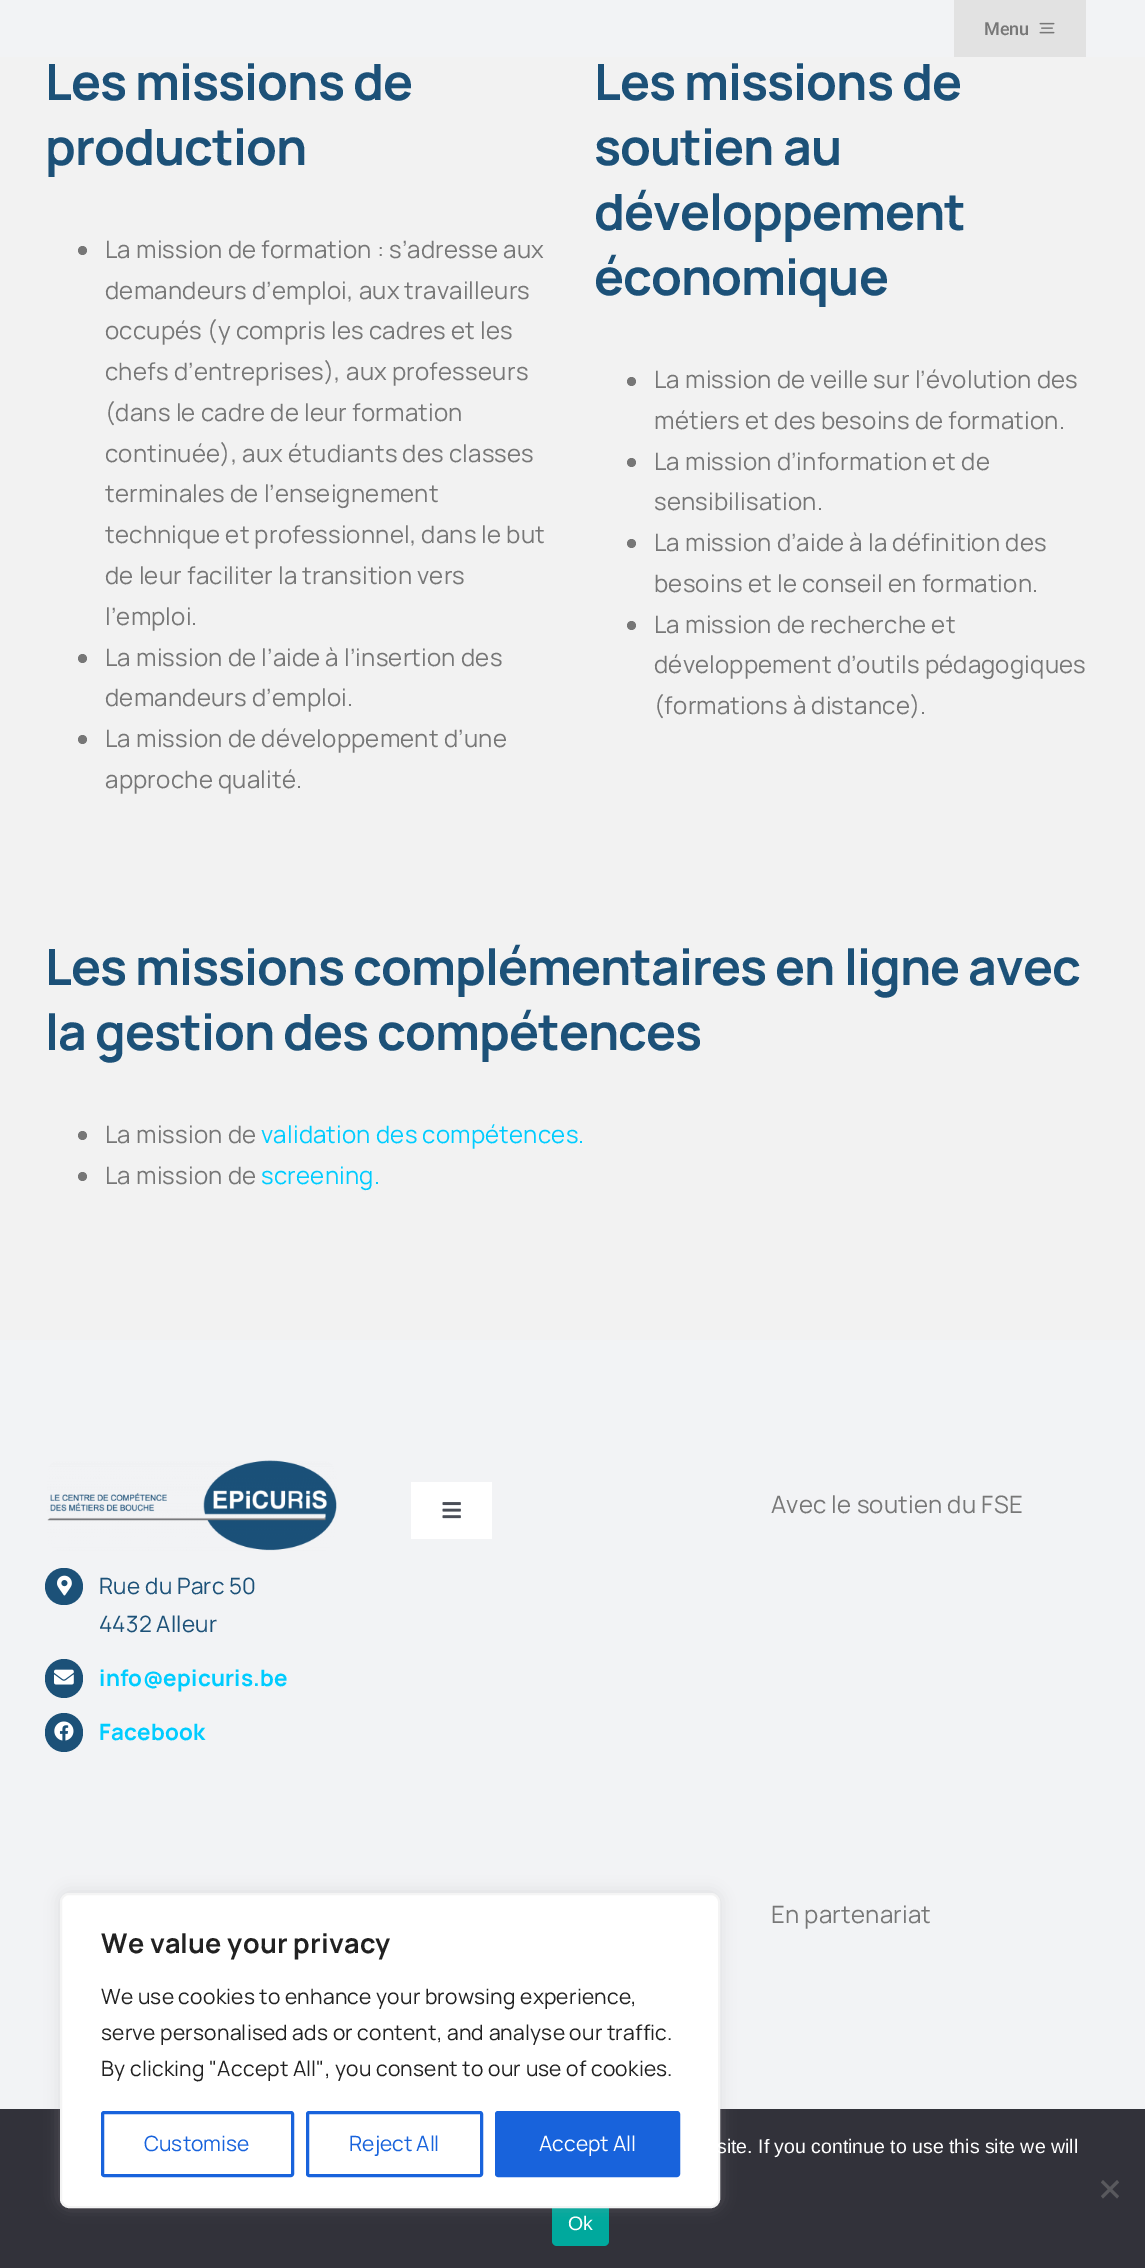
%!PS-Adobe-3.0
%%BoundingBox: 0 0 1145 2268
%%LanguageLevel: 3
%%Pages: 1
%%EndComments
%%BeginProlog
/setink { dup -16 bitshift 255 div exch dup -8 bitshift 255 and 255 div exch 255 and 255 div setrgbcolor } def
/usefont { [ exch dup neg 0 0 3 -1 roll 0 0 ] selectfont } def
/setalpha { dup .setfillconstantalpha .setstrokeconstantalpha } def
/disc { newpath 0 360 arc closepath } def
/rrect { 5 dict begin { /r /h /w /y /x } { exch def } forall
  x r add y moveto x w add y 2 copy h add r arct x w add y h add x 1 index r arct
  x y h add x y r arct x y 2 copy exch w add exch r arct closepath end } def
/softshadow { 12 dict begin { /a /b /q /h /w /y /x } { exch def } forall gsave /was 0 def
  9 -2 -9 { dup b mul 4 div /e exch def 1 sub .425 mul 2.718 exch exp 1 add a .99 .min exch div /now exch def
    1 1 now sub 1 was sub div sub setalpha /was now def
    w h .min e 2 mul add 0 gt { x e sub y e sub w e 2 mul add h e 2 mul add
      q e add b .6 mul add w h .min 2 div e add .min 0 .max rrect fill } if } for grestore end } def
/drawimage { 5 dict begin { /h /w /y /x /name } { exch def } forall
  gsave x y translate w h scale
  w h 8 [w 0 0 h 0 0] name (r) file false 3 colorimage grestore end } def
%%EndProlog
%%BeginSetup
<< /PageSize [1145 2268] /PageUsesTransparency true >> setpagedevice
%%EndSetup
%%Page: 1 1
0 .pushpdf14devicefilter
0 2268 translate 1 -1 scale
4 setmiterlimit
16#F2F2F2 setink
0 0 1145 2268 rectfill
16#F2F3F5 setink
0 0 1145 57 rectfill
16#E2E2E2 setink
954 0 132 57 rectfill
/Roboto-Medium 18 usefont
16#777777 setink
984 35 moveto (Menu) show
(img1.raw) 1039 22 16 12 drawimage
/Manrope-Bold 50.1 usefont
16#1C5178 setink
45 100 moveto -1 0 (Les missions de) ashow
45 165 moveto -1 0 (production) ashow
16#777777 setink
82.5 250.5 4.5 disc fill
/Manrope-Regular 24 usefont
105 258 moveto 0.2 0 (La mission de formation : s’adresse aux) ashow
105 299 moveto 0.2 0 (demandeurs d’emploi, aux travailleurs) ashow
105 339 moveto 0.2 0 (occupés \(y compris les cadres et les) ashow
105 380 moveto 0.2 0 (chefs d’entreprises\), aux professeurs) ashow
105 421 moveto 0.2 0 (\(dans le cadre de leur formation) ashow
105 462 moveto 0.2 0 (continuée\), aux étudiants des classes) ashow
105 502 moveto 0.2 0 (terminales de l’enseignement) ashow
105 543 moveto 0.2 0 (technique et professionnel, dans le but) ashow
105 584 moveto 0.2 0 (de leur faciliter la transition vers) ashow
105 625 moveto 0.2 0 (l’emploi.) ashow
82.5 658.5 4.5 disc fill
105 666 moveto 0.2 0 (La mission de l’aide à l’insertion des) ashow
105 706 moveto 0.2 0 (demandeurs d’emploi.) ashow
82.5 739.5 4.5 disc fill
105 747 moveto 0.2 0 (La mission de développement d’une) ashow
105 788 moveto 0.2 0 (approche qualité.) ashow
/Manrope-Bold 50.1 usefont
16#1C5178 setink
594 100 moveto -1 0 (Les missions de) ashow
594 165 moveto -1 0 (soutien au) ashow
594 230 moveto -1 0 (développement) ashow
594 295 moveto -1 0 (économique) ashow
16#777777 setink
631.5 381.5 4.5 disc fill
/Manrope-Regular 24 usefont
654 388 moveto 0.2 0 (La mission de veille sur l’évolution des) ashow
654 429 moveto 0.2 0 (métiers et des besoins de formation.) ashow
631.5 462.5 4.5 disc fill
654 470 moveto 0.2 0 (La mission d’information et de) ashow
654 510 moveto 0.2 0 (sensibilisation.) ashow
631.5 543.5 4.5 disc fill
654 551 moveto 0.2 0 (La mission d’aide à la définition des) ashow
654 592 moveto 0.2 0 (besoins et le conseil en formation.) ashow
631.5 625.5 4.5 disc fill
654 633 moveto 0.2 0 (La mission de recherche et) ashow
654 673 moveto 0.2 0 (développement d’outils pédagogiques) ashow
654 714 moveto 0.2 0 (\(formations à distance\).) ashow
/Manrope-Bold 50.1 usefont
16#1C5178 setink
45 985 moveto -1 0 (Les missions complémentaires en ligne avec) ashow
45 1050 moveto -1 0 (la gestion des compétences) ashow
16#777777 setink
82.5 1135.5 4.5 disc fill
/Manrope-Regular 24 usefont
105 1143 moveto 0.2 0 (La mission de) ashow
16#00CCFF setink
261 1143 moveto 0.2 0 (validation des compétences.) ashow
16#777777 setink
82.5 1176.5 4.5 disc fill
105 1184 moveto 0.2 0 (La mission de) ashow
16#00CCFF setink
261 1184 moveto 0.2 0 (screening.) ashow
16#F2F3F5 setink
0 1340 1145 769 rectfill
(img2.raw) 47 1460 290 91 drawimage
16#1C5178 setink
45 1568 38 37 18.5 rrect fill
(img3.raw) 57 1575 15 21 drawimage
/Manrope-Regular 22.5 usefont
99 1594 moveto 0.2 0 (Rue du Parc 50) ashow
99 1632 moveto 0.2 0 (4432 Alleur) ashow
45 1659 38 39 19 rrect fill
(img4.raw) 54 1669 20 16 drawimage
/Manrope-Bold 22.5 usefont
16#00CCFF setink
99 1686 moveto 0.2 0 (info@epicuris.be) ashow
16#1C5178 setink
45 1713 38 39 19 rrect fill
(img5.raw) 54 1721 20 20 drawimage
16#00CCFF setink
99 1740 moveto 0.2 0 (Facebook) ashow
16#FFFFFF setink
411 1482 81 57 rectfill
(img6.raw) 442 1502 19 17 drawimage
/Manrope-Regular 24 usefont
16#777777 setink
771 1513 moveto 0.2 0 (Avec le soutien du FSE) ashow
771 1923 moveto 0.2 0 (En partenariat) ashow
16#32323A setink
0 2109 1145 159 rectfill
16#00A99D setink
552 2201 57 45 5 rrect fill
16#ACABAB setink
60 1892 660 315 9 7.5 0.3 softshadow
16#FFFFFF setink
61 1894 658 313 8 rrect gsave fill grestore
16#F4F4F4 setink
2 setlinewidth
stroke
/Manrope-Bold 27 usefont
16#212121 setink
101 1953 moveto 0.2 0 (We value your privacy) ashow
/Manrope-Regular 21 usefont
101 2004 moveto 0.2 0 (We use cookies to enhance your browsing experience,) ashow
101 2040 moveto 0.2 0 (serve personalised ads or content, and analyse our traffic.) ashow
101 2076 moveto 0.2 0 (By clicking "Accept All", you consent to our use of cookies.) ashow
16#1863DC setink
3 setlinewidth
102.5 2112.5 190 63 1.5 rrect stroke
144 2151 moveto (Customise) show
307.5 2112.5 174 63 1.5 rrect stroke
349 2151 moveto (Reject All) show
496.5 2112.5 182 63 1.5 rrect gsave fill grestore
stroke
16#FFFFFF setink
539 2151 moveto (Accept All) show
/LiberationSans-Regular 19.5 usefont
717 2153 moveto (site. If you continue to use this site we will) show
16#59595D setink
1117 2180 moveto 1119 2182.5 lineto 1103 2198.5 lineto 1101 2196 lineto closepath fill
1101 2182.5 moveto 1103 2180 lineto 1119 2196 lineto 1117 2198.5 lineto closepath fill
16#FFFFFF setink
568 2230 moveto (Ok) show
.poppdf14devicefilter showpage
%%EOF
